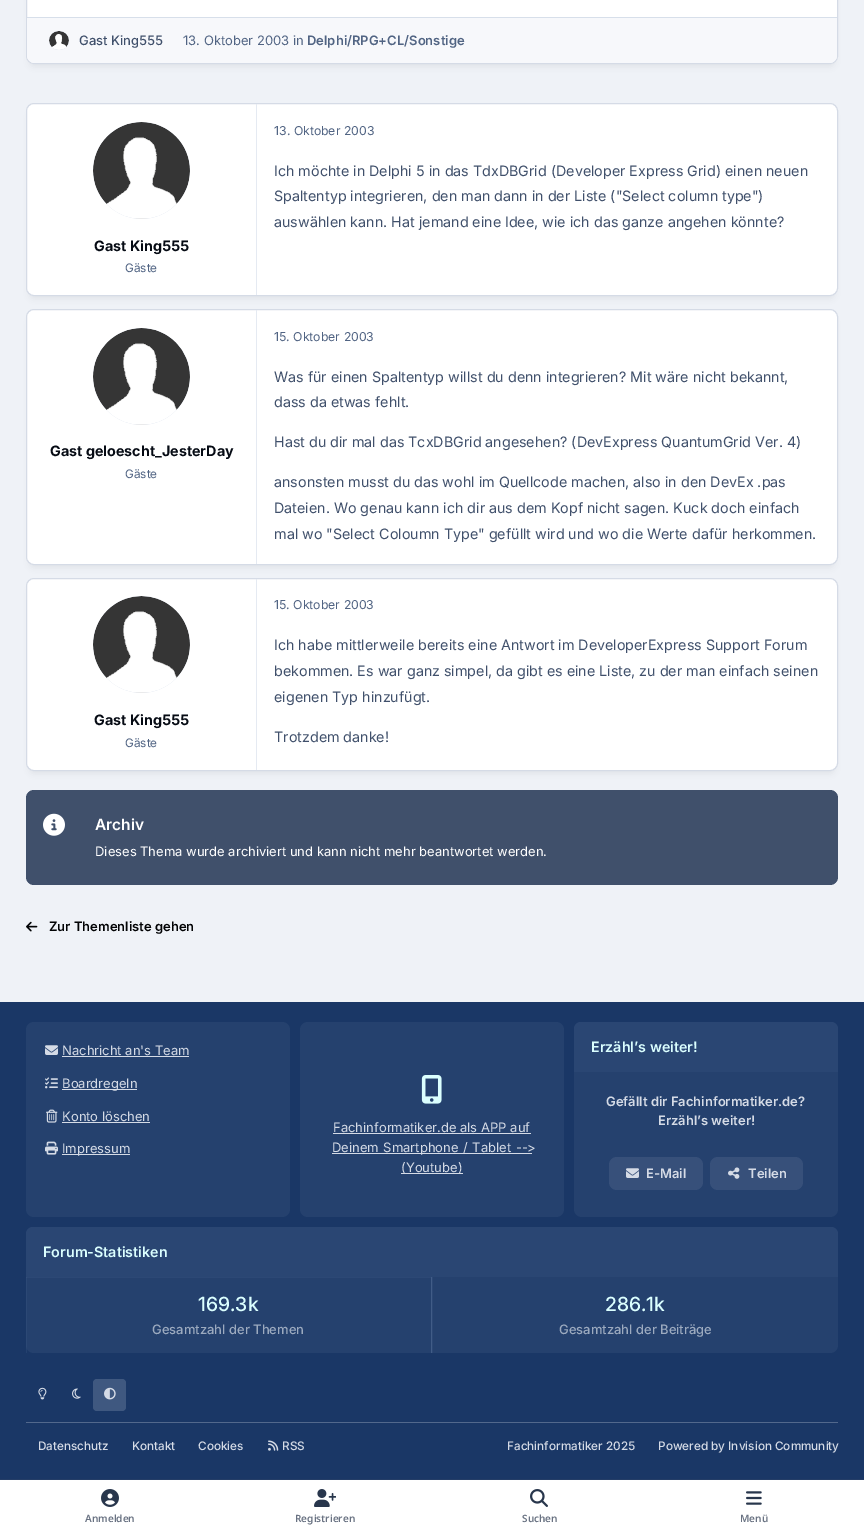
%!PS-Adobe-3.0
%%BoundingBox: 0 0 864 1535
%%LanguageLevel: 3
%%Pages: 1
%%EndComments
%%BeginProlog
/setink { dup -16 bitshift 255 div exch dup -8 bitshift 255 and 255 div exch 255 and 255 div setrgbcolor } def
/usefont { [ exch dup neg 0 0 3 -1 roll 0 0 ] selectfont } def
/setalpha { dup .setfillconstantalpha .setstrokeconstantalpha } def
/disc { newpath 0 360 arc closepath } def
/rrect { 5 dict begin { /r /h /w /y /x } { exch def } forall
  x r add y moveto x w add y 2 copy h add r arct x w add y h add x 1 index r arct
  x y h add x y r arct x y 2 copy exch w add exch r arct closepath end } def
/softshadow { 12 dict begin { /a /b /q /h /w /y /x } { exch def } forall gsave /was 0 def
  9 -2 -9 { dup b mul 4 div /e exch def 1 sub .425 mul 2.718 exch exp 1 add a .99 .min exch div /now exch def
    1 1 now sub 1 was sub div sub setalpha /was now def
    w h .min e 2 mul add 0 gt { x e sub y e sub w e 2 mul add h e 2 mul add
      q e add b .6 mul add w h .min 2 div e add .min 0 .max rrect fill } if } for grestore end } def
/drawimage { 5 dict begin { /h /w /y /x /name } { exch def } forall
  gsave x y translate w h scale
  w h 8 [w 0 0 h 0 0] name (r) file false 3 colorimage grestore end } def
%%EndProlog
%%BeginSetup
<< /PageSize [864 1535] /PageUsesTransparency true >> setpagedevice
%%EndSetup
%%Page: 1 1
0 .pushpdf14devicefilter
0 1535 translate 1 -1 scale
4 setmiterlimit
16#EFF2F7 setink
0 0 864 1535 rectfill
16#01030A setink
29 -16 806 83 5 3.5 0.05 softshadow
16#FFFFFF setink
26.5 -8.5 811 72 7.5 rrect gsave fill grestore
16#D5DBE6 setink
stroke
16#F7F8FB setink
27 17 moveto 837 17 lineto 837 55 lineto 837 59.5 833.5 63 829 63 curveto 35 63 lineto 30.5 63 27 59.5 27 55 curveto closepath fill
16#D7DFEA setink
27 17 810 1 rectfill
16#E5EAF2 setink
49 31 20 19 9.5 rrect fill
(img1.raw) 49 31 20 19 drawimage
/Inter-Medium 13 usefont
16#40506B setink
79 45 moveto (Gast King555) show
/Inter-Regular 13 usefont
16#516483 setink
183 45 moveto (13. Oktober 2003 in) show
/Inter-SemiBold 13 usefont
307 45 moveto (Delphi/RPG+CL/Sonstige) show
16#01030A setink
29 112 806 187 5 3.5 0.05 softshadow
16#FFFFFF setink
26.5 103.5 811 192 7.5 rrect gsave fill grestore
16#D5DBE6 setink
stroke
/Inter-Regular 12.25 usefont
16#516483 setink
274 135 moveto (13. Oktober 2003) show
/Inter-Regular 14.3 usefont
16#40506B setink
[
    [(Ich möchte in Delphi 5 in das TdxDBGrid \(Developer Express Grid\) einen neuen) 274 176]
    [(Spaltentyp integrieren, den man dann in der Liste \("Select column type"\)) 274 201]
    [(auswählen kann. Hat jemand eine Idee, wie ich das ganze angehen könnte?) 274 227]
] { aload pop moveto show } forall
16#E5EAF2 setink
256 104 1 191 rectfill
141.5 170.5 48.5 disc fill
(img2.raw) 93 122 97 97 drawimage
/Inter-Bold 14.3 usefont
16#060B14 setink
94 251 moveto (Gast King555) show
/Inter-Regular 11.75 usefont
16#516483 setink
125 272 moveto (Gäste) show
16#01030A setink
29 318 806 250 5 3.5 0.05 softshadow
16#FFFFFF setink
26.5 309.5 811 255 7.5 rrect gsave fill grestore
16#D5DBE6 setink
stroke
16#E5EAF2 setink
256 310 1 254 rectfill
141.5 376.5 48.5 disc fill
(img3.raw) 93 328 97 97 drawimage
/Inter-Bold 14.3 usefont
16#060B14 setink
50 456 moveto (Gast geloescht_JesterDay) show
/Inter-Regular 11.75 usefont
16#516483 setink
125 478 moveto (Gäste) show
/Inter-Regular 12.25 usefont
274 341 moveto (15. Oktober 2003) show
/Inter-Regular 14.3 usefont
16#40506B setink
[
    [(Was für einen Spaltentyp willst du denn integrieren? Mit wäre nicht bekannt,) 274 382]
    [(dass da etwas fehlt.) 274 407]
    [(Hast du dir mal das TcxDBGrid angesehen? \(DevExpress QuantumGrid Ver. 4\)) 274 447]
    [(ansonsten musst du das wohl im Quellcode machen, also in den DevEx .pas) 274 487]
    [(Dateien. Wo genau kann ich dir aus dem Kopf nicht sagen. Kuck doch einfach) 274 513]
    [(mal wo "Select Coloumn Type" gefüllt wird und wo die Werte dafür herkommen.) 274 539]
] { aload pop moveto show } forall
16#01030A setink
29 587 806 187 5 3.5 0.05 softshadow
16#FFFFFF setink
26.5 578.5 811 192 7.5 rrect gsave fill grestore
16#D5DBE6 setink
stroke
16#E5EAF2 setink
256 579 1 191 rectfill
141.5 644.5 48.5 disc fill
(img4.raw) 93 596 97 97 drawimage
/Inter-Bold 14.3 usefont
16#060B14 setink
94 725 moveto (Gast King555) show
/Inter-Regular 11.75 usefont
16#516483 setink
125 747 moveto (Gäste) show
/Inter-Regular 12.25 usefont
274 609 moveto (15. Oktober 2003) show
/Inter-Regular 14.3 usefont
16#40506B setink
[
    [(Ich habe mittlerweile bereits eine Antwort im DeveloperExpress Support Forum) 274 650]
    [(bekommen. Es war ganz simpel, da gibt es eine Liste, zu der man einfach seinen) 274 676]
    [(eigenen Typ hinzufügt.) 274 702]
    [(Trotzdem danke!) 274 742]
] { aload pop moveto show } forall
26 790 812 95 8 rrect fill
(img5.raw) 43 813 22 23 drawimage
/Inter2-SemiBold 15.5 usefont
16#FFFFFF setink
95 830 moveto (Archiv) show
/Inter-Regular 13 usefont
95 856 moveto (Dieses Thema wurde archiviert und kann nicht mehr beantwortet werden.) show
(img6.raw) 26 921 12 11 drawimage
/Inter-SemiBold 13 usefont
16#020305 setink
49 931 moveto (Zur Themenliste gehen) show
16#1A3766 setink
0 1002 864 477 rectfill
16#25416E setink
26 1022 264 195 8 rrect fill
(img7.raw) 45 1045 13 10 drawimage
/Inter-Regular 13 usefont
16#D5DBE6 setink
62 1055 moveto (Nachricht an's Team) show
62 1056 127 1 rectfill
(img8.raw) 45 1077 13 12 drawimage
62 1089 75 1 rectfill
62 1088 moveto (Boardregeln) show
(img9.raw) 46 1109 12 14 drawimage
62 1121 moveto (Konto löschen) show
62 1122 88 1 rectfill
(img10.raw) 45 1141 13 14 drawimage
62 1154 68 1 rectfill
62 1153 moveto (Impressum) show
16#25416E setink
300 1022 264 195 8 rrect fill
(img11.raw) 421 1075 21 29 drawimage
16#D5DBE6 setink
333 1132 moveto (Fachinformatiker.de als APP auf) show
333 1133 198 1 rectfill
332 1153 200 1 rectfill
332 1152 moveto 1 0 32 (Deinem Smartphone / Tablet -->) widthshow
401 1173 62 1 rectfill
401 1172 moveto (\(Youtube\)) show
16#25416E setink
574 1022 264 195 8 rrect fill
16#2A4673 setink
581 1022 moveto 831 1022 lineto 835 1022 838 1025 838 1029 curveto 838 1072 lineto 574 1072 lineto 574 1029 lineto 574 1025 577 1022 581 1022 curveto closepath fill
/Inter-SemiBold 14.3 usefont
16#DBFFFF setink
591 1052 moveto (Erzähl’s weiter!) show
/Inter-SemiBold 13 usefont
16#D5DBE6 setink
606 1106 moveto (Gefällt dir Fachinformatiker.de?) show
658 1125 moveto (Erzähl’s weiter!) show
16#37507A setink
609 1157 94 33 8 rrect fill
(img12.raw) 626 1168 13 10 drawimage
16#D5DBE6 setink
646 1178 moveto (E-Mail) show
16#37507A setink
710 1157 93 33 8 rrect fill
(img13.raw) 728 1167 12 12 drawimage
16#D5DBE6 setink
748 1178 moveto (Teilen) show
16#25416E setink
26 1227 812 126 8 rrect fill
16#2A4673 setink
33 1227 moveto 831 1227 lineto 835 1227 838 1230 838 1234 curveto 838 1277 lineto 26 1277 lineto 26 1234 lineto 26 1230 29 1227 33 1227 curveto closepath fill
/Inter-SemiBold 14.3 usefont
16#DBFFFF setink
43 1257 moveto (Forum-Statistiken) show
gsave
26 1277 812 76 rectclip
16#415C87 setink
25.5 1276.5 406 77 rectstroke
grestore
/Inter2-Medium 19.5 usefont
198 1311 moveto (169.3k) show
/Inter-Medium 13 usefont
16#9CAABF setink
152 1334 moveto (Gesamtzahl der Themen) show
/Inter2-Medium 19.5 usefont
16#DBFFFF setink
605 1311 moveto (286.1k) show
/Inter-Medium 13 usefont
16#9CAABF setink
559 1334 moveto (Gesamtzahl der Beiträge) show
(img14.raw) 38 1387 9 13 drawimage
(img15.raw) 72 1388 9 11 drawimage
16#3F5880 setink
93 1379 33 32 4 rrect fill
(img16.raw) 104 1387 12 13 drawimage
16#52688C setink
26 1422 812 1 rectfill
/Inter-Medium 11.75 usefont
16#D5DBE6 setink
[
    [(Datenschutz) 38 1450]
    [(Kontakt) 132 1450]
    [(Cookies) 198 1450]
] { aload pop moveto show } forall
(img17.raw) 268 1440 11 11 drawimage
[
    [(RSS) 282 1450]
    [(Fachinformatiker 2025) 507 1450]
    [(Powered by Invision Community) 658 1450]
] { aload pop moveto show } forall
16#243D67 setink
0 1479 864 1 rectfill
16#FFFFFF setink
0 1480 864 55 rectfill
(img18.raw) 101 1489 18 18 drawimage
/NotoSans-SemiBold 10 usefont
16#697282 setink
85 1522 moveto (Anmelden) show
(img19.raw) 314 1489 22 18 drawimage
295 1522 moveto (Registrieren) show
(img20.raw) 530 1489 18 18 drawimage
522 1522 moveto (Suchen) show
(img21.raw) 746 1491 16 14 drawimage
740 1522 moveto (Menü) show
.poppdf14devicefilter showpage
%%EOF
